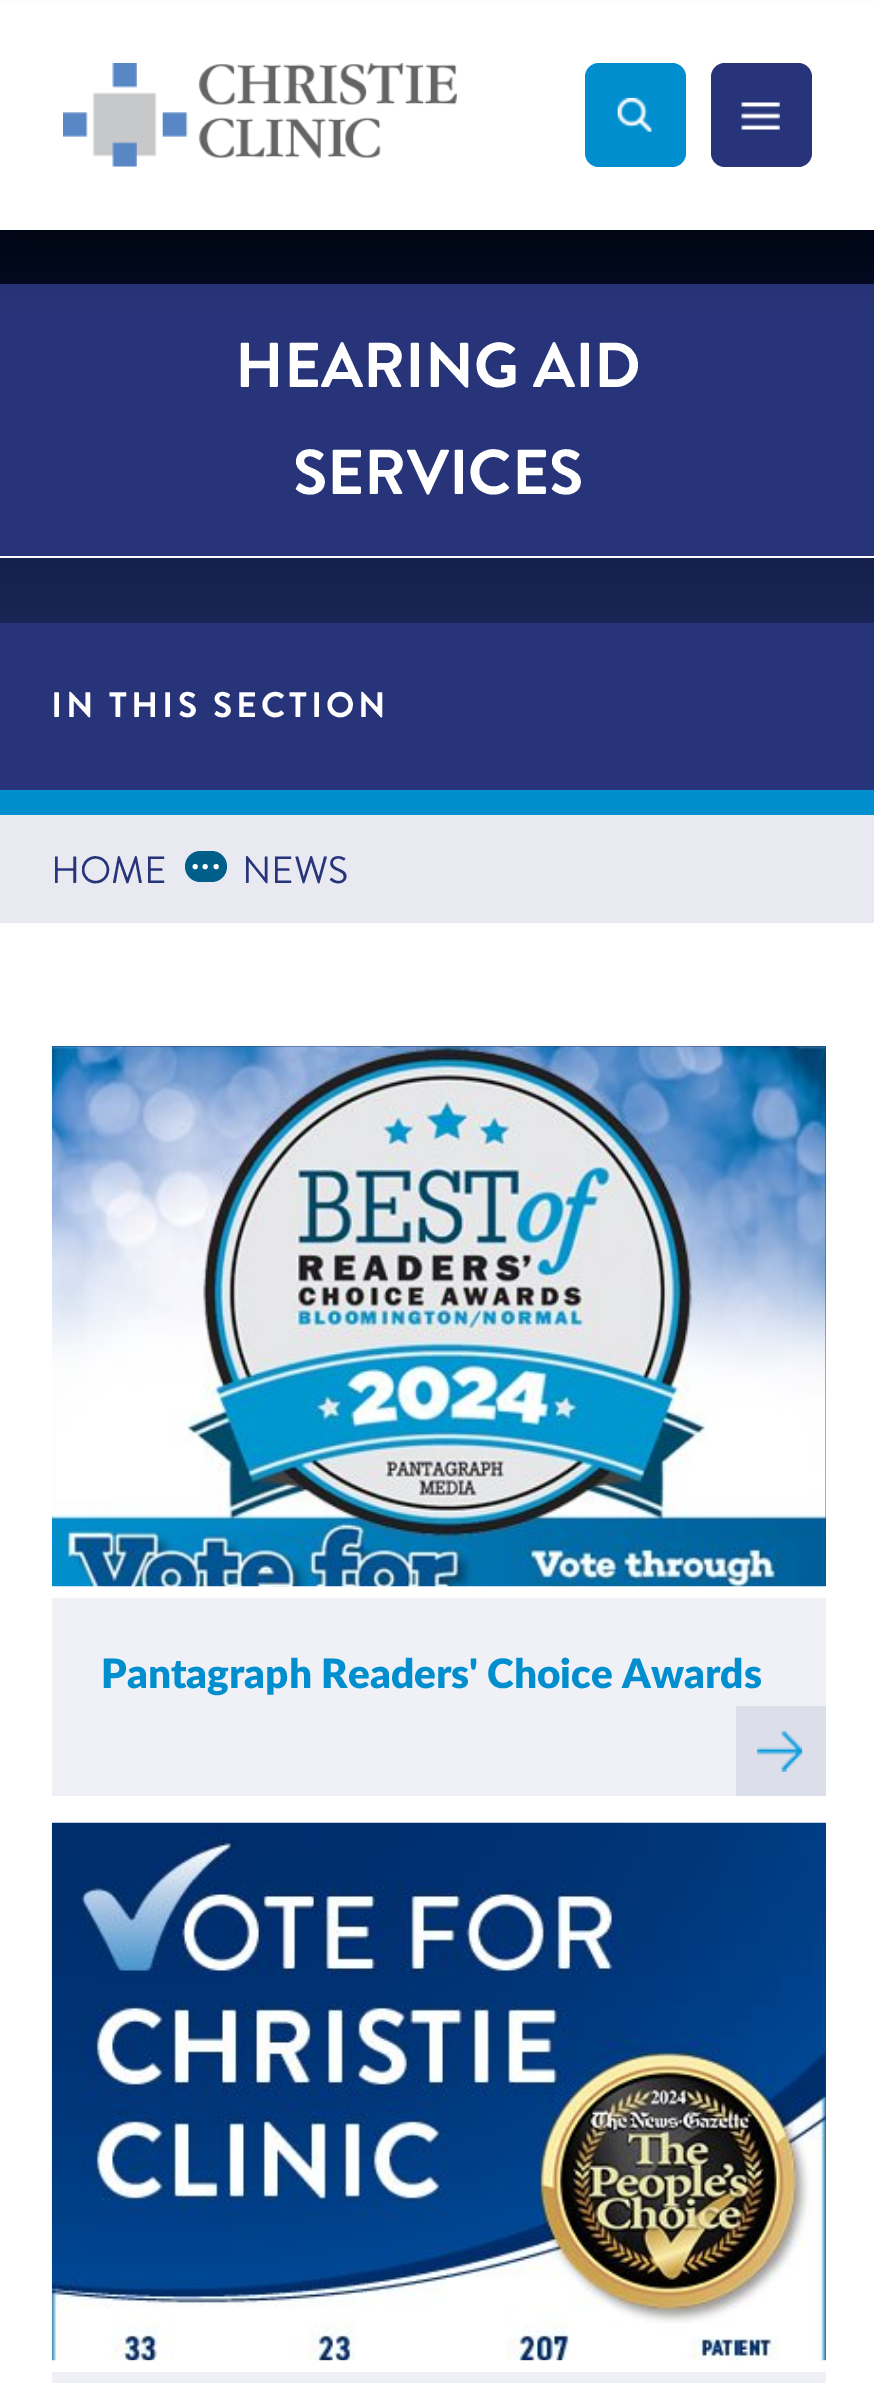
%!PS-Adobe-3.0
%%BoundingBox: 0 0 874 2383
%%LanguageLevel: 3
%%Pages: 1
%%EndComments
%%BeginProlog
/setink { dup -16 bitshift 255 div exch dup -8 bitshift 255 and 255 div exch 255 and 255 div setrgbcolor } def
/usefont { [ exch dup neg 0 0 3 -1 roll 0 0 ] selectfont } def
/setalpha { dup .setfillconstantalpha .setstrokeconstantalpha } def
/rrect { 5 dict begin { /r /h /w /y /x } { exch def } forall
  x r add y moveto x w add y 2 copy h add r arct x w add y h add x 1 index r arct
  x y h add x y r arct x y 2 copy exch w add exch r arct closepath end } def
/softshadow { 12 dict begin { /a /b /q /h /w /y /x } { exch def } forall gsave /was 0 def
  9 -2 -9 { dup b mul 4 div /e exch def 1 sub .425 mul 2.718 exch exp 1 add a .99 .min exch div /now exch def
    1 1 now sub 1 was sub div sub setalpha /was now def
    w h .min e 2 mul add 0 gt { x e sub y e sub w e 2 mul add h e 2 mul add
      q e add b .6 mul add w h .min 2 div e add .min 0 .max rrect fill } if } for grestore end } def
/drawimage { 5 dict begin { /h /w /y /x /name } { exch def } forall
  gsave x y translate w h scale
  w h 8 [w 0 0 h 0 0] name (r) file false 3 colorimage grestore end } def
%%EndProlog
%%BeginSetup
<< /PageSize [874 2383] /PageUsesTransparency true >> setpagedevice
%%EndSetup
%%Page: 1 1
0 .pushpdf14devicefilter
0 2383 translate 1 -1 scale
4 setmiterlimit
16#FFFFFF setink
0 0 874 2383 rectfill
gsave 0 230 moveto 874 230 lineto 874 623 lineto 0 623 lineto closepath clip newpath
<< /ShadingType 2 /ColorSpace /DeviceRGB /Coords [438 229 438 623] /Extend [true true] /Function << /FunctionType 2 /Domain [0 1] /C0 [0 0.024 0.102] /C1 [0.098 0.149 0.333] /N 1 >> >> shfill grestore
16#283479 setink
0 284 874 272 rectfill
16#000000 setink
0 38 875 230 0 19 0.25 softshadow
16#FFFFFF setink
0 5 874 225 rectfill
(img1.raw) 63 63 394 104 drawimage
16#008ECE setink
585 63 101 104 14 rrect fill
(img2.raw) 617 97 35 35 drawimage
16#283479 setink
711 63 101 104 14 rrect fill
(img3.raw) 741 102 39 28 drawimage
16#FFFFFF setink
0 556 874 2 rectfill
/BrandonGrotesque-Bold 63.25 usefont
235 387 moveto (HEARING AID) show
293 494 moveto (SERVICES) show
16#283479 setink
0 623 874 167 rectfill
/BrandonGrotesque-Bold 35.5 usefont
16#FFFFFF setink
51 717 moveto 4 0 (IN THIS SECTION) ashow
16#008ECE setink
0 790 874 25 rectfill
16#E9EAF1 setink
0 815 874 108 rectfill
/BrandonGrotesque-Regular 38 usefont
16#283479 setink
51 883 moveto (HOME) show
16#005E8A setink
185 851 42 31 15.5 rrect fill
/Lato-Bold 35.5 usefont
16#FFFFFF setink
191 869 moveto 2 0 (...) ashow
/BrandonGrotesque-Regular 38 usefont
16#283479 setink
242 883 moveto (NEWS) show
16#F0F1F6 setink
52 1598 774 198 rectfill
gsave 52 1046 moveto 826 1046 lineto 826 1586 lineto 52 1586 lineto closepath clip newpath
<< /ShadingType 2 /ColorSpace /DeviceRGB /Coords [439 1586 439 1046] /Extend [true true] /Function << /FunctionType 2 /Domain [0 1] /C0 [0.102 0.325 0.588] /C1 [0.153 0.2 0.482] /N 1 >> >> shfill grestore
(img4.raw) 51 1046 775 541 drawimage
/Lato-Black 40.5 usefont
16#008ECE setink
101 1688 moveto (Pantagraph Readers' Choice Awards) show
16#DCDEEA setink
736 1706 90 90 rectfill
(img5.raw) 757 1731 46 41 drawimage
16#F0F1F6 setink
52 2372 774 11 rectfill
gsave 825 1823 moveto 826 1823 lineto 826 2360 lineto 825 2360 lineto closepath clip newpath
<< /ShadingType 2 /ColorSpace /DeviceRGB /Coords [439 2360 439 1823] /Extend [true true] /Function << /FunctionType 2 /Domain [0 1] /C0 [0.102 0.325 0.588] /C1 [0.153 0.2 0.482] /N 1 >> >> shfill grestore
(img6.raw) 51 1822 775 539 drawimage
.poppdf14devicefilter showpage
%%EOF
